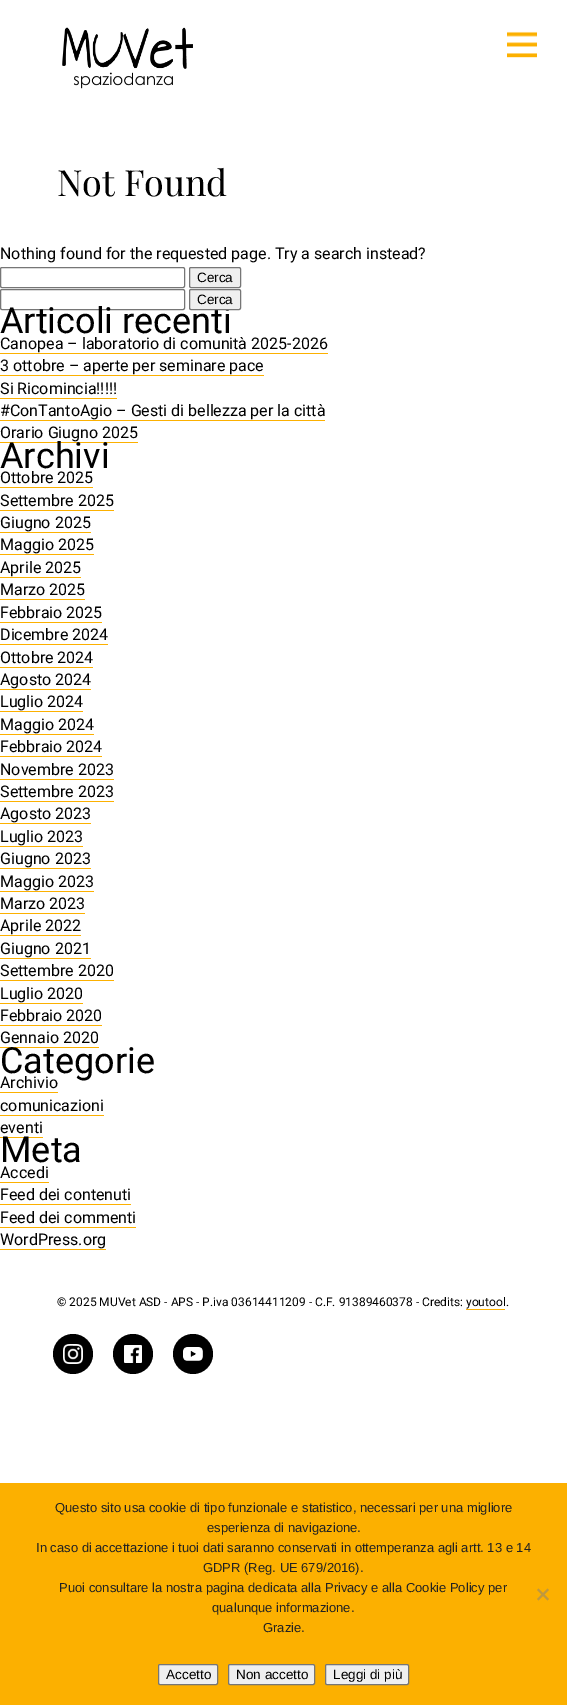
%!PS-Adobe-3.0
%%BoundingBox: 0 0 567 1705
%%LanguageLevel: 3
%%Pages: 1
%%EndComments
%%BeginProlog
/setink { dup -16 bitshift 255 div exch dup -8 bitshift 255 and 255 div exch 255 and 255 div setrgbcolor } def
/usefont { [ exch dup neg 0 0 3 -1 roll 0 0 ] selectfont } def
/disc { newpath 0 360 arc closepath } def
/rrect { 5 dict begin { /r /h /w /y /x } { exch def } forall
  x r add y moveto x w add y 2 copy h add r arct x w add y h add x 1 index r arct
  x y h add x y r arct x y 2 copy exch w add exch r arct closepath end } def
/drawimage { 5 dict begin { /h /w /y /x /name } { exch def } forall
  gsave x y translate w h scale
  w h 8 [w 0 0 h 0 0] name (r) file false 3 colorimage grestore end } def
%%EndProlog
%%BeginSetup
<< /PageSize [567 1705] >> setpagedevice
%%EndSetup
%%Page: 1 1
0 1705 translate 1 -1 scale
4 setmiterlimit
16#FFFFFF setink
0 0 567 1705 rectfill
(img1.raw) 62 27 131 62 drawimage
(img2.raw) 507 31 30 27 drawimage
/PlayfairDisplay-Regular 36 usefont
16#000000 setink
57 196 moveto (Not Found) show
/Roboto-Regular 16 usefont
0 259 moveto (Nothing found for the requested page. Try a search instead?) show
16#767676 setink
0.5 267.5 184 20 1.5 rrect stroke
16#EFEFEF setink
189.5 267.5 51 20 1.5 rrect gsave fill grestore
16#767676 setink
stroke
/LiberationSans-Regular 13.5 usefont
16#000000 setink
197 282 moveto (Cerca) show
16#767676 setink
0.5 289.5 184 20 1.5 rrect stroke
/Roboto-Regular 36 usefont
16#000000 setink
0 333 moveto (Articoli recenti) show
16#EFEFEF setink
189.5 289.5 51 20 1.5 rrect gsave fill grestore
16#767676 setink
stroke
/LiberationSans-Regular 13.5 usefont
16#000000 setink
197 304 moveto (Cerca) show
/Roboto-Regular 16 usefont
0 349 moveto (Canopea – laboratorio di comunità 2025-2026) show
16#FCB000 setink
0 353 328 1 rectfill
16#000000 setink
0 371 moveto (3 ottobre – aperte per seminare pace) show
16#FCB000 setink
0 375 264 1 rectfill
16#000000 setink
0 394 moveto (Si Ricomincia!!!!!) show
16#FCB000 setink
0 398 117 1 rectfill
16#000000 setink
0 416 moveto (#ConTantoAgio – Gesti di bellezza per la città) show
16#FCB000 setink
0 420 325 1 rectfill
16#000000 setink
0 438 moveto (Orario Giugno 2025) show
16#FCB000 setink
0 442 138 1 rectfill
/Roboto-Regular 36 usefont
16#000000 setink
0 468 moveto (Archivi) show
/Roboto-Regular 16 usefont
0 483 moveto (Ottobre 2025) show
16#FCB000 setink
0 487 93 1 rectfill
16#000000 setink
0 506 moveto (Settembre 2025) show
16#FCB000 setink
0 510 114 1 rectfill
16#000000 setink
0 528 moveto (Giugno 2025) show
16#FCB000 setink
0 532 91 1 rectfill
16#000000 setink
0 550 moveto (Maggio 2025) show
16#FCB000 setink
0 554 94 1 rectfill
16#000000 setink
0 573 moveto (Aprile 2025) show
16#FCB000 setink
0 577 81 1 rectfill
16#000000 setink
0 595 moveto (Marzo 2025) show
16#FCB000 setink
0 599 85 1 rectfill
16#000000 setink
0 618 moveto (Febbraio 2025) show
16#FCB000 setink
0 622 102 1 rectfill
16#000000 setink
0 640 moveto (Dicembre 2024) show
16#FCB000 setink
0 644 108 1 rectfill
16#000000 setink
0 663 moveto (Ottobre 2024) show
16#FCB000 setink
0 667 93 1 rectfill
16#000000 setink
0 685 moveto (Agosto 2024) show
16#FCB000 setink
0 689 91 1 rectfill
16#000000 setink
0 707 moveto (Luglio 2024) show
16#FCB000 setink
0 711 83 1 rectfill
16#000000 setink
0 730 moveto (Maggio 2024) show
16#FCB000 setink
0 734 94 1 rectfill
16#000000 setink
0 752 moveto (Febbraio 2024) show
16#FCB000 setink
0 756 102 1 rectfill
16#000000 setink
0 775 moveto (Novembre 2023) show
16#FCB000 setink
0 779 114 1 rectfill
16#000000 setink
0 797 moveto (Settembre 2023) show
16#FCB000 setink
0 801 114 1 rectfill
16#000000 setink
0 819 moveto (Agosto 2023) show
16#FCB000 setink
0 823 91 1 rectfill
16#000000 setink
0 842 moveto (Luglio 2023) show
16#FCB000 setink
0 846 83 1 rectfill
16#000000 setink
0 864 moveto (Giugno 2023) show
16#FCB000 setink
0 868 91 1 rectfill
16#000000 setink
0 887 moveto (Maggio 2023) show
16#FCB000 setink
0 891 94 1 rectfill
16#000000 setink
0 909 moveto (Marzo 2023) show
16#FCB000 setink
0 913 85 1 rectfill
16#000000 setink
0 931 moveto (Aprile 2022) show
16#FCB000 setink
0 935 81 1 rectfill
16#000000 setink
0 954 moveto (Giugno 2021) show
16#FCB000 setink
0 958 91 1 rectfill
16#000000 setink
0 976 moveto (Settembre 2020) show
16#FCB000 setink
0 980 114 1 rectfill
16#000000 setink
0 999 moveto (Luglio 2020) show
16#FCB000 setink
0 1003 83 1 rectfill
16#000000 setink
0 1021 moveto (Febbraio 2020) show
16#FCB000 setink
0 1025 102 1 rectfill
16#000000 setink
0 1043 moveto (Gennaio 2020) show
16#FCB000 setink
0 1047 99 1 rectfill
/Roboto-Regular 36 usefont
16#000000 setink
0 1073 moveto (Categorie) show
/Roboto-Regular 16 usefont
0 1088 moveto (Archivio) show
16#FCB000 setink
0 1092 58 1 rectfill
16#000000 setink
0 1111 moveto (comunicazioni) show
16#FCB000 setink
0 1115 104 1 rectfill
16#000000 setink
0 1133 moveto (eventi) show
16#FCB000 setink
0 1137 43 1 rectfill
/Roboto-Regular 36 usefont
16#000000 setink
0 1162 moveto (Meta) show
/Roboto-Regular 16 usefont
0 1178 moveto (Accedi) show
16#FCB000 setink
0 1182 49 1 rectfill
16#000000 setink
0 1200 moveto (Feed dei contenuti) show
16#FCB000 setink
0 1204 131 1 rectfill
16#000000 setink
0 1223 moveto (Feed dei commenti) show
16#FCB000 setink
0 1227 136 1 rectfill
16#000000 setink
0 1245 moveto (WordPress.org) show
16#FCB000 setink
0 1249 106 1 rectfill
/Roboto-Regular 12 usefont
16#000000 setink
57 1306 moveto (© 2025 MUVet ASD - APS - P.iva 03614411209 - C.F. 91389460378 - Credits: youtool.) show
16#FCB000 setink
466 1309 39 1 rectfill
16#000000 setink
73 1354 20 disc fill
(img3.raw) 63 1344 20 20 drawimage
133 1354 20 disc fill
(img4.raw) 124 1345 18 18 drawimage
193 1354 20 disc fill
(img5.raw) 183 1347 20 14 drawimage
16#FCB000 setink
0 1483 567 222 rectfill
/LiberationSans-Regular 13 usefont
16#222222 setink
[
    [(Questo sito usa cookie di tipo funzionale e statistico, necessari per una migliore) 55 1512]
    [(esperienza di navigazione.) 207 1532]
    [(In caso di accettazione i tuoi dati saranno conservati in ottemperanza agli artt. 13 e 14) 36 1552]
    [(GDPR \(Reg. UE 679/2016\).) 203 1572]
    [(Puoi consultare la nostra pagina dedicata alla Privacy e alla Cookie Policy per) 59 1592]
    [(qualunque informazione.) 212 1612]
    [(Grazie.) 263 1632]
] { aload pop moveto show } forall
16#BE9840 setink
547.5 1588.5 moveto 549 1590 lineto 538.5 1600.5 lineto 537 1599 lineto closepath fill
537 1590 moveto 538.5 1588.5 lineto 549 1599 lineto 547.5 1600.5 lineto closepath fill
16#EFEFEF setink
158.5 1664.5 59 20 1.5 rrect gsave fill grestore
16#767676 setink
stroke
/LiberationSans-Regular 13.5 usefont
16#000000 setink
166 1679 moveto (Accetto) show
16#EFEFEF setink
228.5 1664.5 86 20 1.5 rrect gsave fill grestore
16#767676 setink
stroke
16#000000 setink
236 1679 moveto (Non accetto) show
16#EFEFEF setink
325.5 1664.5 83 20 1.5 rrect gsave fill grestore
16#767676 setink
stroke
16#000000 setink
333 1679 moveto (Leggi di più) show
showpage
%%EOF
